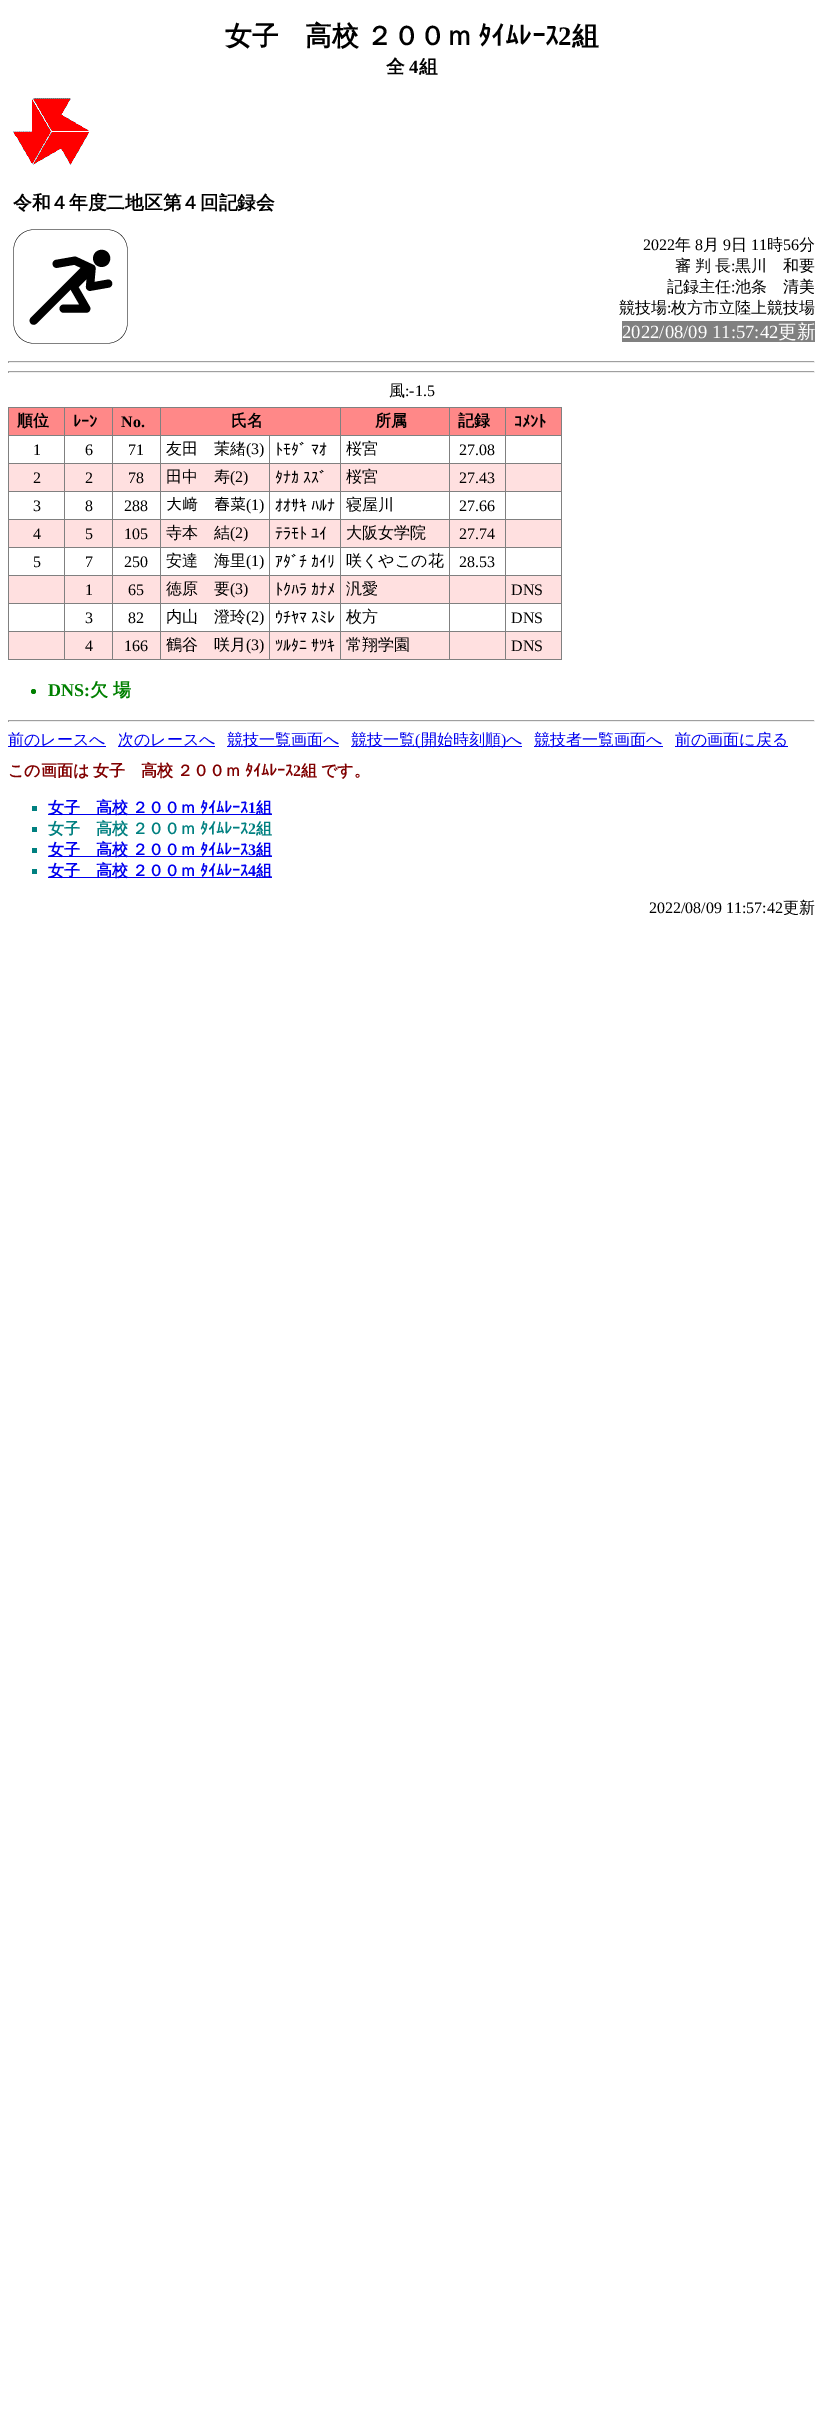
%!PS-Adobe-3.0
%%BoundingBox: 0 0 823 2430
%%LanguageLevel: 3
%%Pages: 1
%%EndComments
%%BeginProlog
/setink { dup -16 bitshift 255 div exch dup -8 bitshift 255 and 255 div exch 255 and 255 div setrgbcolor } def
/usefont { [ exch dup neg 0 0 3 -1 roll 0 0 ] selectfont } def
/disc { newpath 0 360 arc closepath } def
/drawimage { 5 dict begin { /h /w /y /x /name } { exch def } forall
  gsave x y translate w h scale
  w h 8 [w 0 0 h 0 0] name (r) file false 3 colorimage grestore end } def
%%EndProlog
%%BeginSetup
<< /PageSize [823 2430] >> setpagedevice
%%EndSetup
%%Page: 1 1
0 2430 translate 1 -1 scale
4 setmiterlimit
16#FFFFFF setink
0 0 823 2430 rectfill
/WenQuanYiZenHei-Bold 26.75 usefont
16#000000 setink
225 45 moveto -1 0 32 (女子　高校 ２００ｍ) widthshow
/IPAPGothic-Bold 26.75 usefont
478 45 moveto (ﾀｲﾑﾚｰｽ) show
/LiberationSerif-Bold 26.75 usefont
558 45 moveto (2) show
/WenQuanYiZenHei-Bold 26.75 usefont
572 45 moveto (組) show
/WenQuanYiZenHei-Bold 18.7 usefont
386 73 moveto (全) show
/LiberationSerif-Bold 18.7 usefont
409 73 moveto (4) show
/WenQuanYiZenHei-Bold 18.7 usefont
419 73 moveto (組) show
(img1.raw) 13 98 76 67 drawimage
13 209 moveto (令和４年度二地区第４回記録会) show
(img2.raw) 13 229 115 115 drawimage
/LiberationSerif-Regular 16 usefont
643 250 moveto (2022) show
/WenQuanYiZenHei-Medium 16 usefont
675 250 moveto (年) show
/LiberationSerif-Regular 16 usefont
695 250 moveto (8) show
/WenQuanYiZenHei-Medium 16 usefont
703 250 moveto (月) show
/LiberationSerif-Regular 16 usefont
723 250 moveto (9) show
/WenQuanYiZenHei-Medium 16 usefont
731 250 moveto (日) show
/LiberationSerif-Regular 16 usefont
751 250 moveto (11) show
/WenQuanYiZenHei-Medium 16 usefont
767 250 moveto (時) show
/LiberationSerif-Regular 16 usefont
783 250 moveto (56) show
/WenQuanYiZenHei-Medium 16 usefont
799 250 moveto (分) show
675 271 moveto -1 0 32 (審 判 長) widthshow
/LiberationSerif-Regular 16 usefont
731 271 moveto (:) show
/WenQuanYiZenHei-Medium 16 usefont
735 271 moveto (黒川　和要) show
667 292 moveto (記録主任) show
/LiberationSerif-Regular 16 usefont
731 292 moveto (:) show
/WenQuanYiZenHei-Medium 16 usefont
735 292 moveto (池条　清美) show
619 313 moveto (競技場) show
/LiberationSerif-Regular 16 usefont
667 313 moveto (:) show
/WenQuanYiZenHei-Medium 16 usefont
671 313 moveto (枚方市立陸上競技場) show
16#808080 setink
622 321 193 21 rectfill
/LiberationSerif-Regular 18.7 usefont
16#FFFFFF setink
622 338 moveto (2022/08/09 11:57:42) show
/WenQuanYiZenHei-Medium 18.7 usefont
778 338 moveto (更新) show
[
    [8 361 807 1 16#9F9F9F]
    [814 361 1 2 16#EEEEEE]
    [8 362 807 1 16#EEEEEE]
    [8 361 1 2 16#9F9F9F]
    [8 371 807 1 16#9F9F9F]
    [814 371 1 2 16#EEEEEE]
    [8 372 807 1 16#EEEEEE]
    [8 371 1 2 16#9F9F9F]
] { aload pop setink rectfill } forall
/WenQuanYiZenHei-Medium 16 usefont
16#000000 setink
389 396 moveto (風) show
/LiberationSerif-Regular 16 usefont
405 396 moveto (:-1.5) show
[
    [8 407 554 1 16#808080]
    [8 407 1 253 16#808080]
    [9 408 55 27 16#FF8888]
    [9 464 552 27 16#FFE0E0]
    [9 520 552 27 16#FFE0E0]
    [9 576 552 27 16#FFE0E0]
    [9 632 552 27 16#FFE0E0]
    [561 407 1 253 16#808080]
    [505 659 57 1 16#808080]
    [505 631 1 29 16#808080]
    [505 631 57 1 16#808080]
    [505 603 1 29 16#808080]
    [505 603 57 1 16#808080]
    [505 575 1 29 16#808080]
    [505 575 57 1 16#808080]
    [505 547 1 29 16#808080]
    [505 547 57 1 16#808080]
    [505 519 1 29 16#808080]
    [505 519 57 1 16#808080]
    [505 491 1 29 16#808080]
    [505 491 57 1 16#808080]
    [505 463 1 29 16#808080]
    [505 463 57 1 16#808080]
    [505 435 1 29 16#808080]
    [505 435 57 1 16#808080]
    [505 407 1 29 16#808080]
    [449 659 57 1 16#808080]
    [449 631 1 29 16#808080]
    [449 631 57 1 16#808080]
    [449 603 1 29 16#808080]
    [449 603 57 1 16#808080]
    [449 575 1 29 16#808080]
    [449 575 57 1 16#808080]
    [449 547 1 29 16#808080]
    [449 547 57 1 16#808080]
    [449 519 1 29 16#808080]
    [449 519 57 1 16#808080]
    [449 491 1 29 16#808080]
    [449 491 57 1 16#808080]
    [449 463 1 29 16#808080]
    [449 463 57 1 16#808080]
    [449 435 1 29 16#808080]
    [449 435 57 1 16#808080]
    [449 407 1 29 16#808080]
    [340 659 110 1 16#808080]
    [340 631 1 29 16#808080]
    [340 631 110 1 16#808080]
    [340 603 1 29 16#808080]
    [340 603 110 1 16#808080]
    [340 575 1 29 16#808080]
    [340 575 110 1 16#808080]
    [340 547 1 29 16#808080]
    [340 547 110 1 16#808080]
    [340 519 1 29 16#808080]
    [340 519 110 1 16#808080]
    [340 491 1 29 16#808080]
    [340 491 110 1 16#808080]
    [340 463 1 29 16#808080]
    [340 463 110 1 16#808080]
    [340 435 1 29 16#808080]
    [340 435 110 1 16#808080]
    [340 407 1 29 16#808080]
    [269 659 72 1 16#808080]
    [269 631 1 29 16#808080]
    [269 631 72 1 16#808080]
    [269 603 1 29 16#808080]
    [269 603 72 1 16#808080]
    [269 575 1 29 16#808080]
    [269 575 72 1 16#808080]
    [269 547 1 29 16#808080]
    [269 547 72 1 16#808080]
    [269 519 1 29 16#808080]
    [269 519 72 1 16#808080]
    [269 491 1 29 16#808080]
    [269 491 72 1 16#808080]
    [269 463 1 29 16#808080]
    [269 463 72 1 16#808080]
    [269 435 1 29 16#808080]
    [160 659 110 1 16#808080]
    [160 631 1 29 16#808080]
    [160 631 110 1 16#808080]
    [160 603 1 29 16#808080]
    [160 603 110 1 16#808080]
    [160 575 1 29 16#808080]
    [160 575 110 1 16#808080]
    [160 547 1 29 16#808080]
    [160 547 110 1 16#808080]
    [160 519 1 29 16#808080]
    [160 519 110 1 16#808080]
    [160 491 1 29 16#808080]
    [160 491 110 1 16#808080]
    [160 463 1 29 16#808080]
    [160 463 110 1 16#808080]
    [160 435 1 29 16#808080]
    [160 435 181 1 16#808080]
    [160 407 1 29 16#808080]
    [112 659 49 1 16#808080]
    [112 631 1 29 16#808080]
    [112 631 49 1 16#808080]
    [112 603 1 29 16#808080]
    [112 603 49 1 16#808080]
    [112 575 1 29 16#808080]
    [112 575 49 1 16#808080]
    [112 547 1 29 16#808080]
    [112 547 49 1 16#808080]
    [112 519 1 29 16#808080]
    [112 519 49 1 16#808080]
    [112 491 1 29 16#808080]
    [112 491 49 1 16#808080]
    [112 463 1 29 16#808080]
    [112 463 49 1 16#808080]
    [112 435 1 29 16#808080]
    [112 435 49 1 16#808080]
    [112 407 1 29 16#808080]
    [64 659 49 1 16#808080]
    [64 631 1 29 16#808080]
    [64 631 49 1 16#808080]
    [64 603 1 29 16#808080]
    [64 603 49 1 16#808080]
    [64 575 1 29 16#808080]
    [64 575 49 1 16#808080]
    [64 547 1 29 16#808080]
    [64 547 49 1 16#808080]
    [64 519 1 29 16#808080]
    [64 519 49 1 16#808080]
    [64 491 1 29 16#808080]
    [64 491 49 1 16#808080]
    [64 463 1 29 16#808080]
    [64 463 49 1 16#808080]
    [64 435 1 29 16#808080]
    [64 435 49 1 16#808080]
    [64 407 1 29 16#808080]
    [8 435 57 1 16#808080]
] { aload pop setink rectfill } forall
/WenQuanYiZenHei-Bold 16 usefont
16#000000 setink
17 426 moveto (順位) show
16#FF8888 setink
65 408 47 27 rectfill
/IPAPGothic-Bold 16 usefont
16#000000 setink
73 427 moveto (ﾚｰﾝ) show
16#FF8888 setink
113 408 47 27 rectfill
/LiberationSerif-Bold 16 usefont
16#000000 setink
121 427 moveto (No.) show
16#FF8888 setink
161 408 179 27 rectfill
/WenQuanYiZenHei-Bold 16 usefont
16#000000 setink
231 426 moveto (氏名) show
16#FF8888 setink
341 408 108 27 rectfill
16#000000 setink
375 426 moveto (所属) show
16#FF8888 setink
450 408 55 27 rectfill
16#000000 setink
458 426 moveto (記録) show
16#FF8888 setink
506 408 55 27 rectfill
/IPAPGothic-Bold 16 usefont
16#000000 setink
514 427 moveto (ｺﾒﾝﾄ) show
16#808080 setink
8 463 57 1 rectfill
/LiberationSerif-Regular 16 usefont
16#000000 setink
[
    [(1) 33 455]
    [(6) 85 455]
    [(71) 128 455]
] { aload pop moveto show } forall
/WenQuanYiZenHei-Medium 16 usefont
166 454 moveto (友田　茉緒) show
/LiberationSerif-Regular 16 usefont
246 454 moveto (\(3\)) show
/IPAPGothic-Regular 16 usefont
275 455 moveto (ﾄﾓﾀﾞ ﾏｵ) show
/WenQuanYiZenHei-Medium 16 usefont
346 454 moveto (桜宮) show
/LiberationSerif-Regular 16 usefont
459 455 moveto (27.08) show
16#808080 setink
8 491 57 1 rectfill
16#000000 setink
[
    [(2) 33 483]
    [(2) 85 483]
    [(78) 128 483]
] { aload pop moveto show } forall
/WenQuanYiZenHei-Medium 16 usefont
166 482 moveto (田中　寿) show
/LiberationSerif-Regular 16 usefont
230 482 moveto (\(2\)) show
/IPAPGothic-Regular 16 usefont
275 483 moveto (ﾀﾅｶ ｽｽﾞ) show
/WenQuanYiZenHei-Medium 16 usefont
346 482 moveto (桜宮) show
/LiberationSerif-Regular 16 usefont
459 483 moveto (27.43) show
16#808080 setink
8 519 57 1 rectfill
16#000000 setink
[
    [(3) 33 511]
    [(8) 85 511]
    [(288) 124 511]
] { aload pop moveto show } forall
/IPAPGothic-Regular 16 usefont
166 510 moveto (大﨑　春菜) show
/LiberationSerif-Regular 16 usefont
246 510 moveto (\(1\)) show
/IPAPGothic-Regular 16 usefont
275 511 moveto (ｵｵｻｷ ﾊﾙﾅ) show
/WenQuanYiZenHei-Medium 16 usefont
346 510 moveto (寝屋川) show
/LiberationSerif-Regular 16 usefont
459 511 moveto (27.66) show
16#808080 setink
8 547 57 1 rectfill
16#000000 setink
[
    [(4) 33 539]
    [(5) 85 539]
    [(105) 124 539]
] { aload pop moveto show } forall
/WenQuanYiZenHei-Medium 16 usefont
166 538 moveto (寺本　結) show
/LiberationSerif-Regular 16 usefont
230 538 moveto (\(2\)) show
/IPAPGothic-Regular 16 usefont
275 539 moveto (ﾃﾗﾓﾄ ﾕｲ) show
/WenQuanYiZenHei-Medium 16 usefont
346 538 moveto (大阪女学院) show
/LiberationSerif-Regular 16 usefont
459 539 moveto (27.74) show
16#808080 setink
8 575 57 1 rectfill
16#000000 setink
[
    [(5) 33 567]
    [(7) 85 567]
    [(250) 124 567]
] { aload pop moveto show } forall
/WenQuanYiZenHei-Medium 16 usefont
166 566 moveto (安達　海里) show
/LiberationSerif-Regular 16 usefont
246 566 moveto (\(1\)) show
/IPAPGothic-Regular 16 usefont
275 567 moveto (ｱﾀﾞﾁ ｶｲﾘ) show
/WenQuanYiZenHei-Medium 16 usefont
346 566 moveto (咲くやこの花) show
/LiberationSerif-Regular 16 usefont
459 567 moveto (28.53) show
16#808080 setink
8 603 57 1 rectfill
16#000000 setink
85 595 moveto (1) show
128 595 moveto (65) show
/WenQuanYiZenHei-Medium 16 usefont
166 594 moveto (徳原　要) show
/LiberationSerif-Regular 16 usefont
230 594 moveto (\(3\)) show
/IPAPGothic-Regular 16 usefont
275 595 moveto (ﾄｸﾊﾗ ｶﾅﾒ) show
/WenQuanYiZenHei-Medium 16 usefont
346 594 moveto (汎愛) show
/LiberationSerif-Regular 16 usefont
511 595 moveto (DNS) show
16#808080 setink
8 631 57 1 rectfill
16#000000 setink
85 623 moveto (3) show
128 623 moveto (82) show
/WenQuanYiZenHei-Medium 16 usefont
166 622 moveto (内山　澄玲) show
/LiberationSerif-Regular 16 usefont
246 622 moveto (\(2\)) show
/IPAPGothic-Regular 16 usefont
275 623 moveto (ｳﾁﾔﾏ ｽﾐﾚ) show
/WenQuanYiZenHei-Medium 16 usefont
346 622 moveto (枚方) show
/LiberationSerif-Regular 16 usefont
511 623 moveto (DNS) show
16#808080 setink
8 659 57 1 rectfill
16#000000 setink
85 651 moveto (4) show
124 651 moveto (166) show
/WenQuanYiZenHei-Medium 16 usefont
166 650 moveto (鶴谷　咲月) show
/LiberationSerif-Regular 16 usefont
246 650 moveto (\(3\)) show
/IPAPGothic-Regular 16 usefont
275 651 moveto (ﾂﾙﾀﾆ ｻﾂｷ) show
/WenQuanYiZenHei-Medium 16 usefont
346 650 moveto (常翔学園) show
/LiberationSerif-Regular 16 usefont
511 651 moveto (DNS) show
16#008000 setink
33.5 691.5 2.5 disc fill
/LiberationSerif-Bold 18 usefont
48 696 moveto (DNS:) show
/WenQuanYiZenHei-Bold 18 usefont
90 696 moveto (欠) show
113 696 moveto (場) show
[
    [8 720 807 1 16#9F9F9F]
    [814 720 1 2 16#EEEEEE]
    [8 721 807 1 16#EEEEEE]
    [8 720 1 2 16#9F9F9F]
    [8 746 98 1 16#0000EE]
] { aload pop setink rectfill } forall
/WenQuanYiZenHei-Medium 16 usefont
8 745 moveto (前のレースへ) show
118 746 97 1 rectfill
118 745 moveto (次のレースへ) show
227 746 112 1 rectfill
227 745 moveto (競技一覧画面へ) show
351 746 171 1 rectfill
351 745 moveto (競技一覧) show
/LiberationSerif-Regular 16 usefont
415 745 moveto (\() show
/WenQuanYiZenHei-Medium 16 usefont
421 745 moveto (開始時刻順) show
/LiberationSerif-Regular 16 usefont
501 745 moveto (\)) show
/WenQuanYiZenHei-Medium 16 usefont
506 745 moveto (へ) show
534 746 129 1 rectfill
534 745 moveto (競技者一覧画面へ) show
675 746 113 1 rectfill
675 745 moveto (前の画面に戻る) show
/WenQuanYiZenHei-Bold 16 usefont
16#800000 setink
8 776 moveto -1 0 32 (この画面は 女子　高校 ２００ｍ) widthshow
/IPAPGothic-Bold 16 usefont
245 776 moveto (ﾀｲﾑﾚｰｽ) show
/LiberationSerif-Bold 16 usefont
293 776 moveto (2) show
/WenQuanYiZenHei-Bold 16 usefont
301 776 moveto -1 0 32 (組 です。) widthshow
16#008080 setink
32 806 5 5 rectfill
16#0000EE setink
48 814 224 1 rectfill
48 813 moveto -1 0 32 (女子　高校 ２００ｍ) widthshow
/IPAPGothic-Bold 16 usefont
200 813 moveto (ﾀｲﾑﾚｰｽ) show
/LiberationSerif-Bold 16 usefont
248 813 moveto (1) show
/WenQuanYiZenHei-Bold 16 usefont
256 813 moveto (組) show
16#008080 setink
32 827 5 5 rectfill
48 834 moveto -1 0 32 (女子　高校 ２００ｍ) widthshow
/IPAPGothic-Bold 16 usefont
200 834 moveto (ﾀｲﾑﾚｰｽ) show
/LiberationSerif-Bold 16 usefont
248 834 moveto (2) show
/WenQuanYiZenHei-Bold 16 usefont
256 834 moveto (組) show
32 848 5 5 rectfill
16#0000EE setink
48 856 224 1 rectfill
48 855 moveto -1 0 32 (女子　高校 ２００ｍ) widthshow
/IPAPGothic-Bold 16 usefont
200 855 moveto (ﾀｲﾑﾚｰｽ) show
/LiberationSerif-Bold 16 usefont
248 855 moveto (3) show
/WenQuanYiZenHei-Bold 16 usefont
256 855 moveto (組) show
16#008080 setink
32 869 5 5 rectfill
16#0000EE setink
48 877 224 1 rectfill
48 876 moveto -1 0 32 (女子　高校 ２００ｍ) widthshow
/IPAPGothic-Bold 16 usefont
200 876 moveto (ﾀｲﾑﾚｰｽ) show
/LiberationSerif-Bold 16 usefont
248 876 moveto (4) show
/WenQuanYiZenHei-Bold 16 usefont
256 876 moveto (組) show
/LiberationSerif-Regular 16 usefont
16#000000 setink
649 913 moveto (2022/08/09 11:57:42) show
/WenQuanYiZenHei-Medium 16 usefont
783 913 moveto (更新) show
showpage
%%EOF
